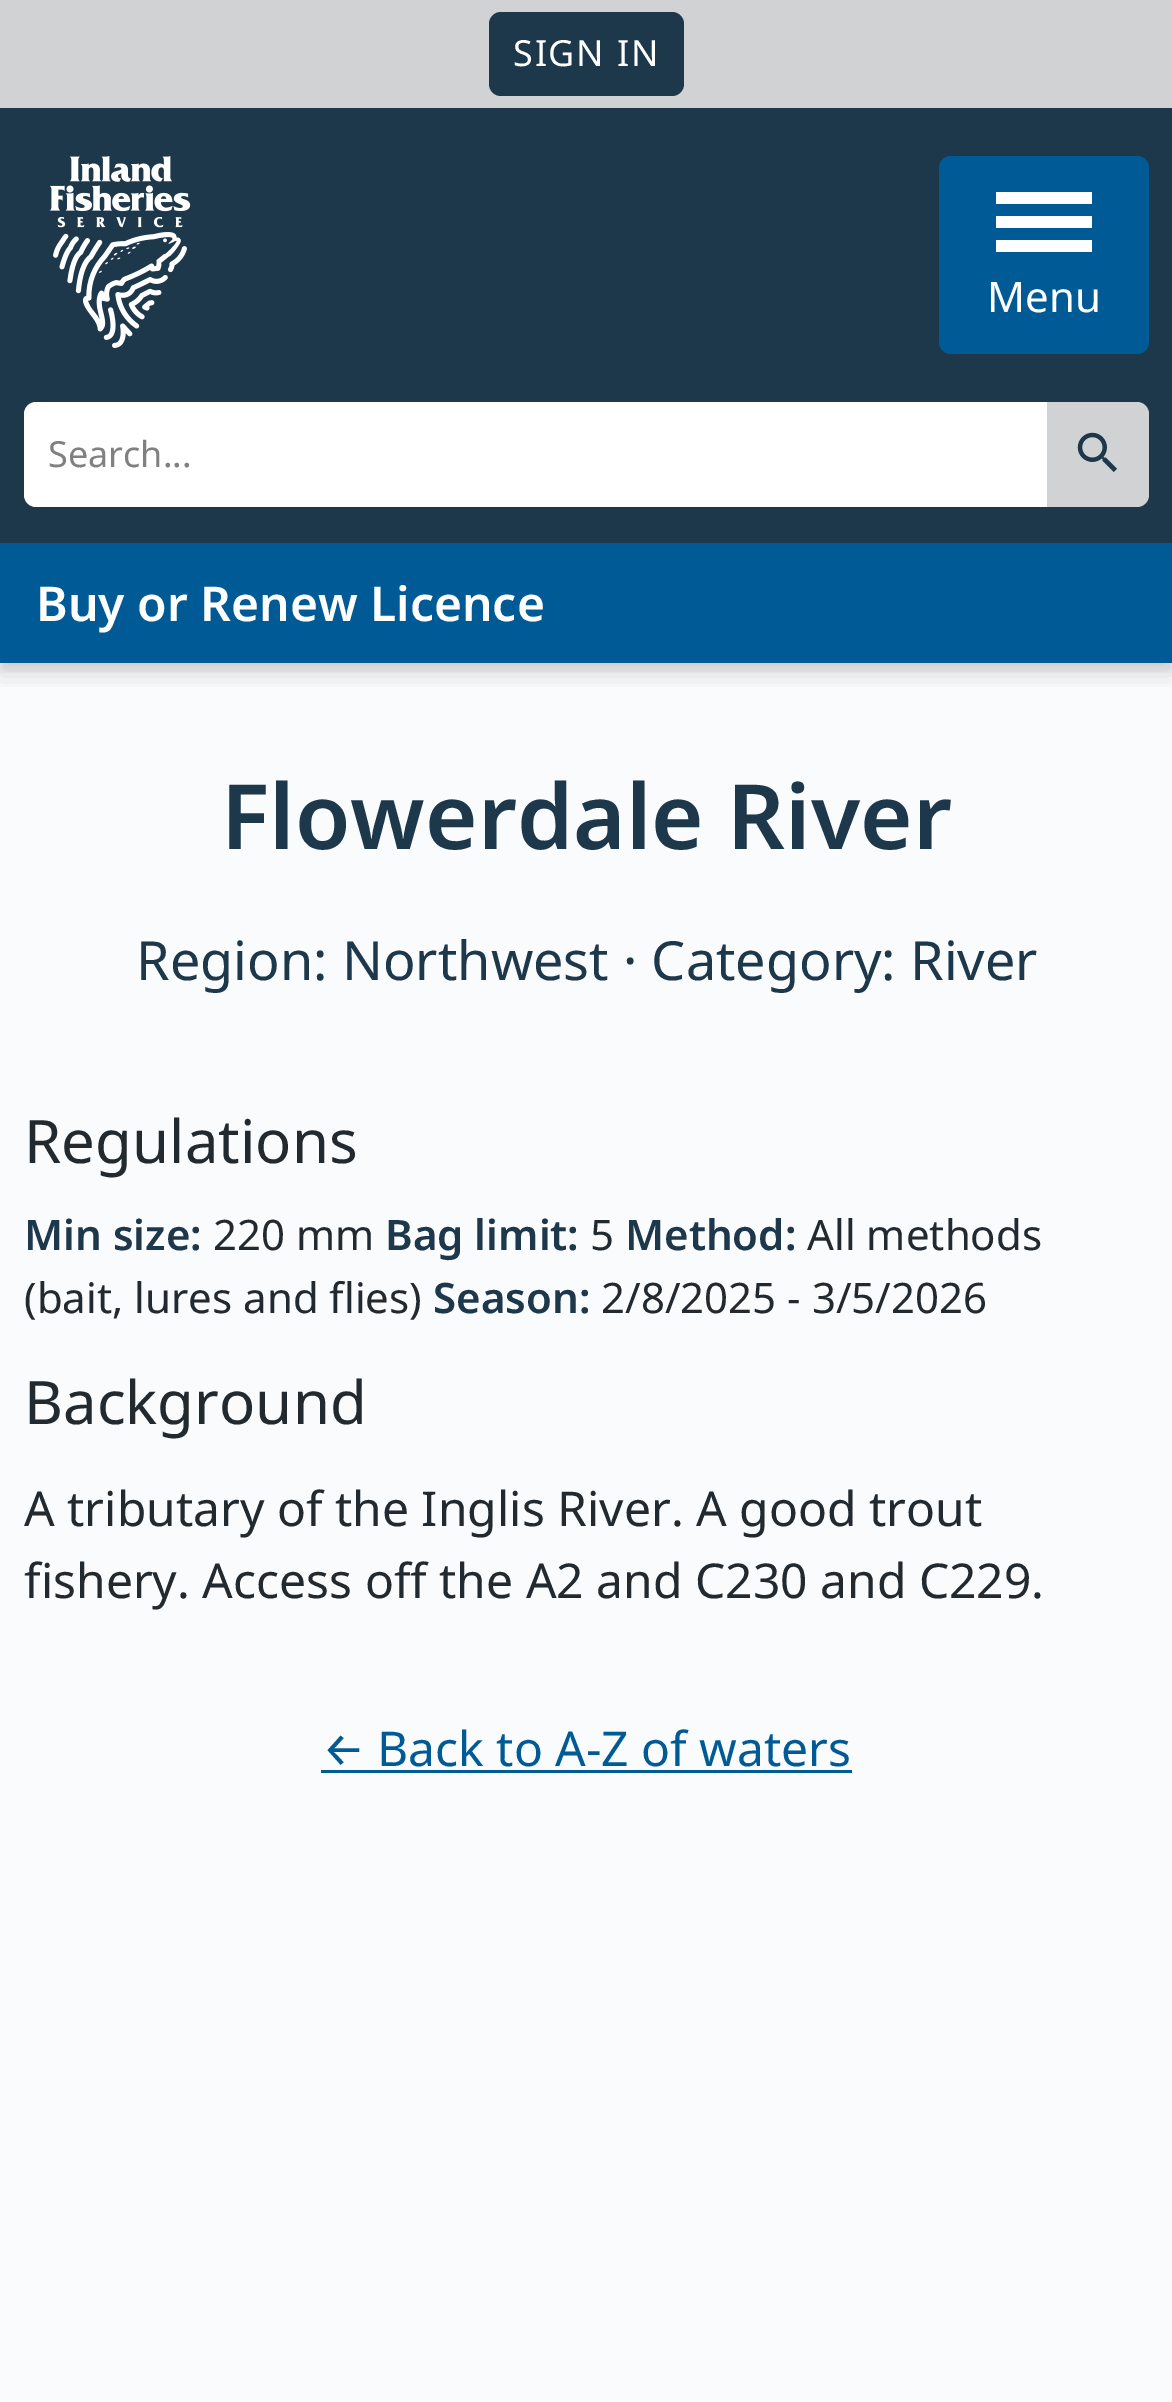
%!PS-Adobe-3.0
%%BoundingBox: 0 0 1172 2402
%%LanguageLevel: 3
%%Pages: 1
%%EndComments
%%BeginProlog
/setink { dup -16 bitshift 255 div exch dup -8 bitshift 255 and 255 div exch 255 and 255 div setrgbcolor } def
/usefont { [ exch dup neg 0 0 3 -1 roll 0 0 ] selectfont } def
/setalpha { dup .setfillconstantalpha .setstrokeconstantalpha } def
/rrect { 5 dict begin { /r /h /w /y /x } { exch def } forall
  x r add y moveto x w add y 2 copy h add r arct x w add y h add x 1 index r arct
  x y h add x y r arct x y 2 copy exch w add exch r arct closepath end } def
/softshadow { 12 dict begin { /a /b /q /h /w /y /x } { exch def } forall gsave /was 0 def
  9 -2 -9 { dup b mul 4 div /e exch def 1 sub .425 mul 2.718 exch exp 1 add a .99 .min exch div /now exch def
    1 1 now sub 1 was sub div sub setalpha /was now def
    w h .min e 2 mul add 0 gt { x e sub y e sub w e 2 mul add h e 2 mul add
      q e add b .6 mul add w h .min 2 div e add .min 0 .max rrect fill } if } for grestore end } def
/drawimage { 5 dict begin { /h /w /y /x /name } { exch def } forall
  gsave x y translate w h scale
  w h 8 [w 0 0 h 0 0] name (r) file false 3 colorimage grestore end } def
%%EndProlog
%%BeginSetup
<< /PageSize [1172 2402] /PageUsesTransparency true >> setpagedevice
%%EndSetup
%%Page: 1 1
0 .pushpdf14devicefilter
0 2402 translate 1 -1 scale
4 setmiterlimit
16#1D374B setink
0 0 1172 2402 rectfill
16#D1D2D4 setink
0 0 1172 108 rectfill
16#1D374B setink
489 12 195 84 12 rrect fill
/NotoSans-Regular 36 usefont
16#FFFFFF setink
513 66 moveto 1.75 0 (SIGN IN) ashow
16#FAFBFC setink
0 663 1172 1739 rectfill
gsave
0 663 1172 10 rectclip
16#000000 setink
0 114 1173 555 0 6 0.08 softshadow
grestore
gsave
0 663 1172 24 rectclip
16#000000 setink
0 120 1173 555 0 12 0.12 softshadow
grestore
(img1.raw) 49 156 142 192 drawimage
16#005A96 setink
939 156 210 198 12 rrect fill
[
    [996 192 96 12 16#FFFFFF]
    [996 216 96 12 16#FFFFFF]
    [996 240 96 12 16#FFFFFF]
] { aload pop setink rectfill } forall
/NotoSans-Regular 42 usefont
987 312 moveto (Menu) show
36 402 moveto 1047 402 lineto 1047 507 lineto 36 507 lineto 29.5 507 24 501.5 24 495 curveto 24 414 lineto 24 407.5 29.5 402 36 402 curveto closepath fill
/NotoSans-Regular 36 usefont
16#808080 setink
48 467 moveto (Search...) show
16#D1D2D4 setink
1047 402 moveto 1137 402 lineto 1143.5 402 1149 407.5 1149 414 curveto 1149 495 lineto 1149 501.5 1143.5 507 1137 507 curveto 1047 507 lineto closepath fill
(img2.raw) 1077 432 40 40 drawimage
16#005A96 setink
0 543 1172 120 rectfill
/NotoSans-SemiBold 48 usefont
16#FFFFFF setink
36 621 moveto (Buy or Renew Licence) show
/NotoSans-SemiBold 90 usefont
16#1D374B setink
221 849 moveto (Flowerdale River) show
/NotoSans-Regular 54 usefont
136 980 moveto (Region: Northwest · Category: River) show
/NotoSans-Regular 60 usefont
16#22292F setink
24 1163 moveto (Regulations) show
/NotoSans-SemiBold 42 usefont
16#1D374B setink
24 1250 moveto (Min size:) show
/NotoSans-Regular 42 usefont
16#22292F setink
213 1250 moveto (220 mm) show
/NotoSans-SemiBold 42 usefont
16#1D374B setink
385 1250 moveto (Bag limit:) show
/NotoSans-Regular 42 usefont
16#22292F setink
590 1250 moveto (5) show
/NotoSans-SemiBold 42 usefont
16#1D374B setink
625 1250 moveto (Method:) show
/NotoSans-Regular 42 usefont
16#22292F setink
807 1250 moveto (All methods) show
24 1313 moveto (\(bait, lures and flies\)) show
/NotoSans-SemiBold 42 usefont
16#1D374B setink
433 1313 moveto (Season:) show
/NotoSans-Regular 42 usefont
16#22292F setink
601 1313 moveto (2/8/2025 - 3/5/2026) show
/NotoSans-Regular 60 usefont
24 1424 moveto (Background) show
/NotoSans-Regular 48 usefont
24 1526 moveto (A tributary of the Inglis River. A good trout) show
24 1598 moveto (fishery. Access off the A2 and C230 and C229.) show
/FiraSans-Regular 48 usefont
16#005A96 setink
322 1766 moveto (←) show
321 1770 531 3 rectfill
/NotoSans-Regular 48 usefont
377 1766 moveto (Back to A-Z of waters) show
.poppdf14devicefilter showpage
%%EOF
